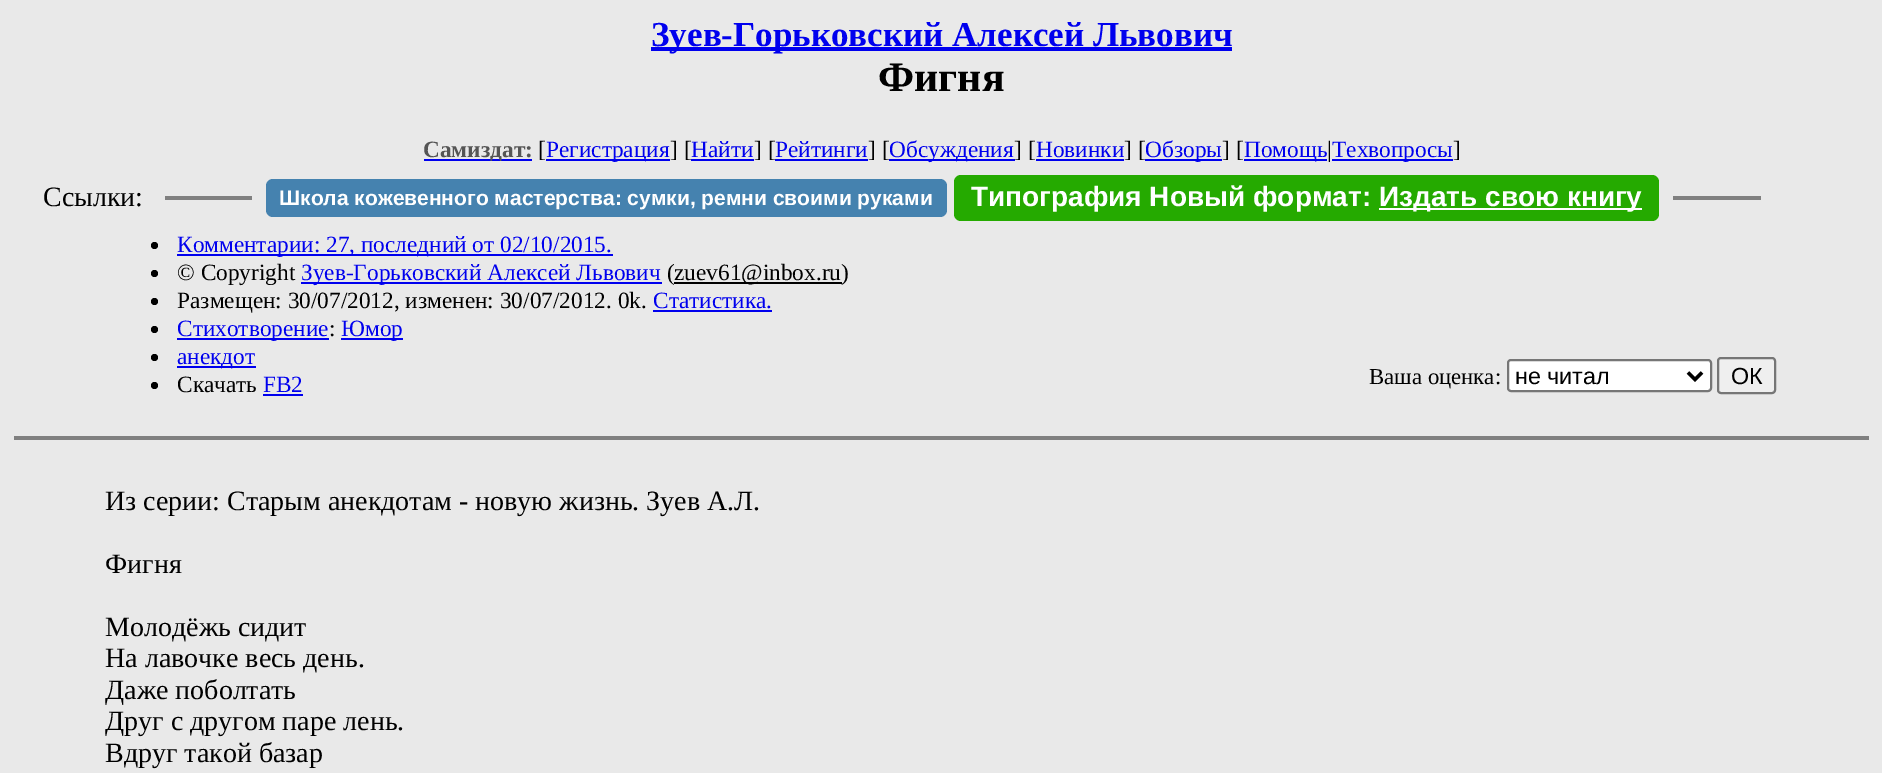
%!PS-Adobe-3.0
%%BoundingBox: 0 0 1882 773
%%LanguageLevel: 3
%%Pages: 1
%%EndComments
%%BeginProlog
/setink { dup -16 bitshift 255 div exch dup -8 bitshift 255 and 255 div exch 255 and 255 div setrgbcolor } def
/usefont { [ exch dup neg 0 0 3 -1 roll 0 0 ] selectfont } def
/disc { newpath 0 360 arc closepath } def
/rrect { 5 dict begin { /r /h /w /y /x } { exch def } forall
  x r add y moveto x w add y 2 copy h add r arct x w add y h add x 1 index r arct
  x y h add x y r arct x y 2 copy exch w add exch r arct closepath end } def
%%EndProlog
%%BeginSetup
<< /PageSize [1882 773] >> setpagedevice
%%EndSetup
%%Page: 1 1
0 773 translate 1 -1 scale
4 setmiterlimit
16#E9E9E9 setink
0 0 1882 773 rectfill
16#0000EE setink
651 47 581 4 rectfill
/LiberationSerif-Bold 35 usefont
651 46 moveto (Зуев-Горьковский Алексей Львович) show
/LiberationSerif-Bold 42 usefont
16#000000 setink
878 91 moveto (Фигня) show
16#0000EE setink
424 159 108 2 rectfill
/LiberationSerif-Bold 23.3 usefont
16#555555 setink
423 157 moveto (Самиздат:) show
/LiberationSerif-Regular 23.3 usefont
16#000000 setink
538 157 moveto ([) show
16#0000EE setink
546 159 124 2 rectfill
546 157 moveto (Регистрация) show
16#000000 setink
670 157 moveto (] [) show
16#0000EE setink
691 159 63 2 rectfill
691 157 moveto (Найти) show
16#000000 setink
754 157 moveto (] [) show
16#0000EE setink
775 159 93 2 rectfill
775 157 moveto (Рейтинги) show
16#000000 setink
868 157 moveto (] [) show
16#0000EE setink
889 159 126 2 rectfill
889 157 moveto (Обсуждения) show
16#000000 setink
1014 157 moveto (] [) show
16#0000EE setink
1036 157 moveto (Новинки) show
16#000000 setink
1124 157 moveto (] [) show
16#0000EE setink
1036 159 88 2 rectfill
1145 159 77 2 rectfill
1145 157 moveto (Обзоры) show
16#000000 setink
1222 157 moveto (] [) show
16#0000EE setink
1244 159 83 2 rectfill
1244 157 moveto (Помощь) show
16#000000 setink
1327 157 moveto (|) show
16#0000EE setink
1332 159 121 2 rectfill
1332 157 moveto (Техвопросы) show
16#000000 setink
1453 157 moveto (]) show
/LiberationSerif-Regular 28 usefont
43 206 moveto (Ссылки:) show
16#808080 setink
165 196 87 4 rectfill
16#4582AF setink
266 179 681 38 7 rrect fill
/LiberationSans-Bold 21 usefont
16#FFFFFF setink
279 205 moveto (Школа кожевенного мастерства: сумки, ремни своими руками) show
16#25AA00 setink
954 175 705 46 7 rrect fill
/LiberationSans-Bold 28 usefont
16#FFFFFF setink
971 206 moveto (Типография Новый формат:) show
1379 208 263 2 rectfill
1379 206 moveto (Издать свою книгу) show
16#808080 setink
1673 196 88 4 rectfill
16#000000 setink
154.5 245.5 3.5 disc fill
16#0000EE setink
177 254 436 2 rectfill
/LiberationSerif-Regular 23.3 usefont
177 252 moveto (Комментарии: 27, последний от 02/10/2015.) show
16#000000 setink
154.5 273.5 3.5 disc fill
177 280 moveto (© Copyright) show
16#0000EE setink
301 282 361 2 rectfill
301 280 moveto (Зуев-Горьковский Алексей Львович) show
16#000000 setink
667 280 moveto (\() show
674 282 168 2 rectfill
674 280 moveto (zuev61@inbox.ru\)) show
154.5 301.5 3.5 disc fill
177 308 moveto (Размещен: 30/07/2012, изменен: 30/07/2012. 0k.) show
16#0000EE setink
653 308 moveto (Статистика.) show
653 310 119 2 rectfill
16#000000 setink
154.5 329.5 3.5 disc fill
16#0000EE setink
177 338 152 2 rectfill
177 336 moveto (Стихотворение) show
16#000000 setink
329 336 moveto (:) show
16#0000EE setink
341 338 62 2 rectfill
341 336 moveto (Юмор) show
16#000000 setink
154.5 357.5 3.5 disc fill
16#0000EE setink
177 366 79 2 rectfill
177 364 moveto (анекдот) show
16#000000 setink
154.5 385.5 3.5 disc fill
177 392 moveto (Скачать) show
16#0000EE setink
263 392 moveto (FB2) show
263 394 40 2 rectfill
/LiberationSerif-Regular 22.75 usefont
16#000000 setink
1369 384 moveto (Ваша оценка:) show
16#FFFFFF setink
1508 360 203 31 3 rrect gsave fill grestore
16#767676 setink
2 setlinewidth
stroke
16#000000 setink
3.5 setlinewidth
1688 372.5 moveto 1695 379.5 lineto 1702 372.5 lineto stroke
/LiberationSans-Regular 23.3 usefont
1515 384 moveto (не читал) show
16#EFEFEF setink
1718 358 57 35 3 rrect gsave fill grestore
16#767676 setink
2 setlinewidth
stroke
16#000000 setink
1731 384 moveto (ОК) show
16#808080 setink
14 436 1855 4 rectfill
/LiberationSerif-Regular 28 usefont
16#000000 setink
[
    [(Из серии: Старым анекдотам - новую жизнь. Зуев А.Л.) 105 510]
    [(Фигня) 105 573]
    [(Молодёжь сидит) 105 636]
    [(На лавочке весь день.) 105 667]
    [(Даже поболтать) 105 699]
    [(Друг с другом паре лень.) 105 730]
    [(Вдруг такой базар) 105 762]
] { aload pop moveto show } forall
showpage
%%EOF
